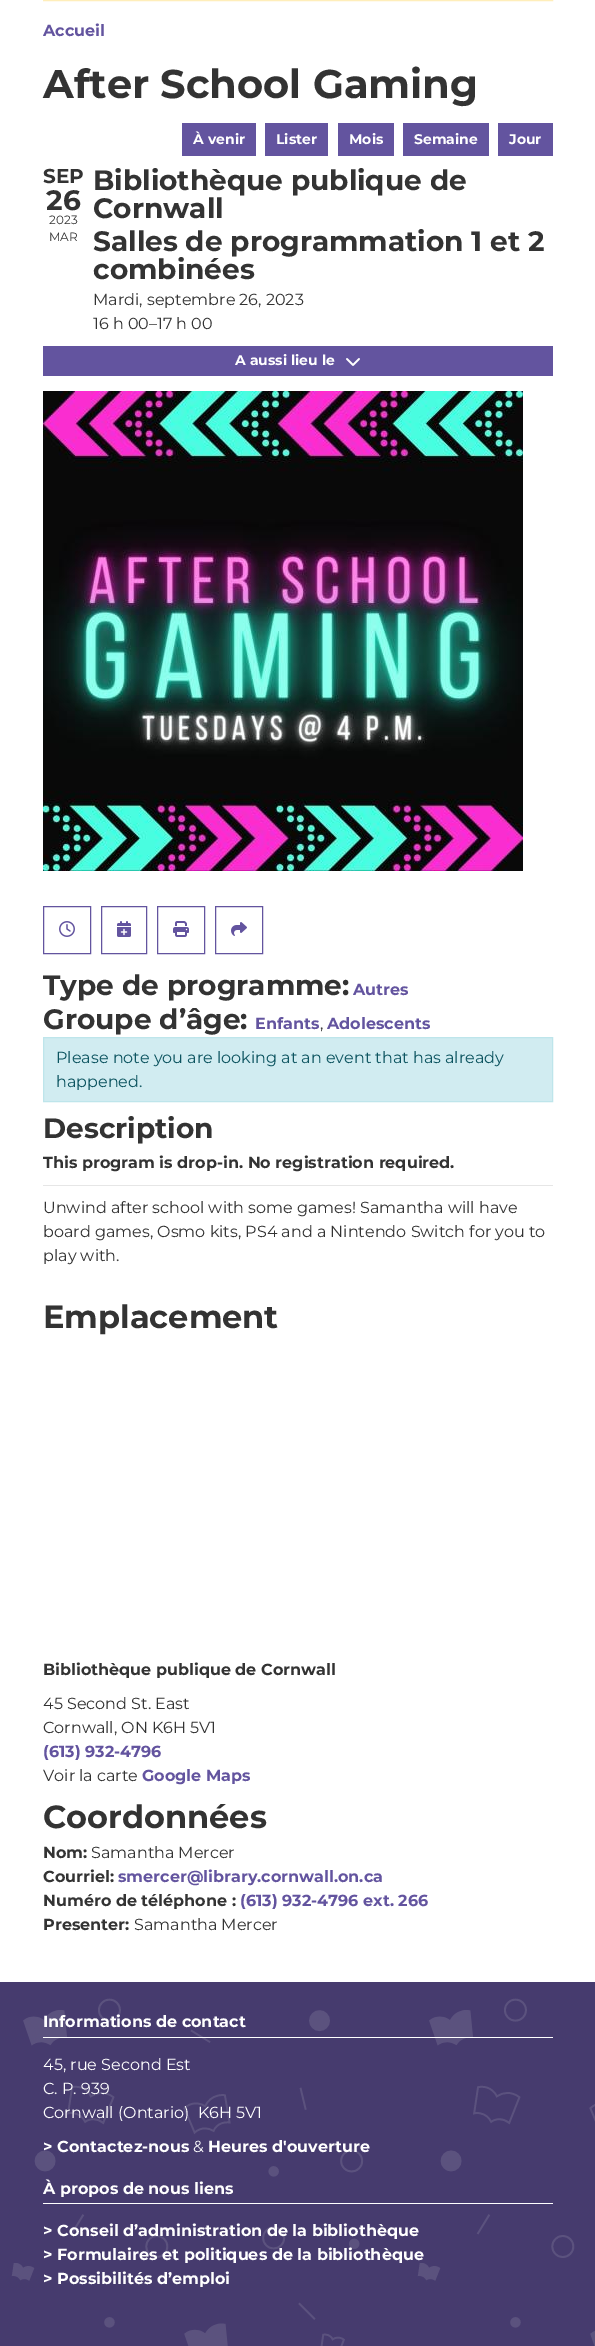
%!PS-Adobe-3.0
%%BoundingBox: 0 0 595 2346
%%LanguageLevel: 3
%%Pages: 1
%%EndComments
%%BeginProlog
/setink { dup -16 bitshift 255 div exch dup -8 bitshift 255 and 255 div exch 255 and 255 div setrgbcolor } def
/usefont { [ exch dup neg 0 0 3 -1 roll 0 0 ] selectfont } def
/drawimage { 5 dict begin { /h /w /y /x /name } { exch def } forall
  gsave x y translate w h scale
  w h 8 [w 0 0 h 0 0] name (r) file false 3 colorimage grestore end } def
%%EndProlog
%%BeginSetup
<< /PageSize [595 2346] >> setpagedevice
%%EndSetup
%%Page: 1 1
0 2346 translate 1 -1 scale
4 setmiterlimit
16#FFFFFF setink
0 0 595 2346 rectfill
16#FFEEBA setink
43.5 -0.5 509 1 rectstroke
/Montserrat-Bold 16 usefont
16#63549F setink
43 36 moveto (Accueil) show
/Montserrat-Bold 40 usefont
16#333333 setink
43 98 moveto (After School Gaming) show
16#63549F setink
182 123 74 33 rectfill
/Montserrat-Bold 14 usefont
16#FFFFFF setink
193 144 moveto (À venir) show
16#63549F setink
265 123 63 33 rectfill
16#FFFFFF setink
276 144 moveto (Lister) show
16#63549F setink
338 123 56 33 rectfill
16#FFFFFF setink
349 144 moveto (Mois) show
16#63549F setink
403 123 86 33 rectfill
16#FFFFFF setink
414 144 moveto (Semaine) show
16#63549F setink
498 123 55 33 rectfill
16#FFFFFF setink
509 144 moveto (Jour) show
/Montserrat-Bold 20 usefont
16#333333 setink
43 183 moveto (SEP) show
/Montserrat-Bold 28 usefont
46 210 moveto (26) show
/Montserrat-Regular 12 usefont
49 224 moveto (2023) show
49 241 moveto (MAR) show
/Montserrat-Bold 28 usefont
[
    [(Bibliothèque publique de) 93 190]
    [(Cornwall) 93 218]
    [(Salles de programmation 1 et 2) 93 251]
    [(combinées) 93 279]
] { aload pop moveto show } forall
/Montserrat-Regular 16 usefont
93 305 moveto (Mardi, septembre 26, 2023) show
93 329 moveto (16 h 00–17 h 00) show
16#63549F setink
43 346 510 30 rectfill
/Montserrat-Bold 14 usefont
16#FFFFFF setink
235 365 moveto (A aussi lieu le) show
(img1.raw) 346 358 14 8 drawimage
(img2.raw) 43 391 480 480 drawimage
16#63549F setink
43.5 906.5 47 47 rectstroke
(img3.raw) 59 921 16 16 drawimage
101.5 906.5 45 47 rectstroke
(img4.raw) 117 921 14 16 drawimage
157.5 906.5 47 47 rectstroke
(img5.raw) 173 921 16 16 drawimage
215.5 906.5 47 47 rectstroke
(img6.raw) 231 922 16 14 drawimage
/Montserrat-Bold 28 usefont
16#333333 setink
43 995 moveto (Type de programme:) show
/Montserrat-Bold 16 usefont
16#63549F setink
353 995 moveto (Autres) show
/Montserrat-Bold 28 usefont
16#333333 setink
43 1029 moveto (Groupe d’âge:) show
/Montserrat-Bold 16 usefont
16#63549F setink
255 1029 moveto (Enfants) show
/Montserrat-Regular 16 usefont
16#333333 setink
320 1029 moveto (,) show
/Montserrat-Bold 16 usefont
16#63549F setink
327 1029 moveto (Adolescents) show
16#D1ECF1 setink
43.5 1037.5 moveto 552.5 1037.5 lineto 552.5 1101.5 lineto 43.5 1101.5 lineto closepath gsave fill grestore
16#BEE5EB setink
stroke
/Montserrat-Regular 16 usefont
16#0C5460 setink
56 1063 moveto (Please note you are looking at an event that has already) show
56 1087 moveto (happened.) show
/Montserrat-Bold 28 usefont
16#333333 setink
43 1138 moveto (Description) show
/Montserrat-Bold 16 usefont
43 1168 moveto (This program is drop-in. No registration required.) show
16#E6E6E6 setink
43 1185 510 1 rectfill
/Montserrat-Regular 16 usefont
16#333333 setink
[
    [(Unwind after school with some games! Samantha will have) 43 1213]
    [(board games, Osmo kits, PS4 and a Nintendo Switch for you to) 43 1237]
    [(play with.) 43 1261]
] { aload pop moveto show } forall
/Montserrat-Bold 32 usefont
43 1328 moveto (Emplacement) show
/Montserrat-Bold 16 usefont
43 1675 moveto (Bibliothèque publique de Cornwall) show
/Montserrat-Regular 16 usefont
43 1709 moveto (45 Second St. East) show
43 1733 moveto (Cornwall, ON K6H 5V1) show
/Montserrat-Bold 16 usefont
16#63549F setink
43 1757 moveto (\(613\) 932-4796) show
/Montserrat-Regular 16 usefont
16#333333 setink
43 1781 moveto (Voir la carte) show
/Montserrat-Bold 16 usefont
16#63549F setink
142 1781 moveto (Google Maps) show
/Montserrat-Bold 32 usefont
16#333333 setink
43 1828 moveto (Coordonnées) show
/Montserrat-Bold 16 usefont
43 1858 moveto (Nom:) show
/Montserrat-Regular 16 usefont
91 1858 moveto (Samantha Mercer) show
/Montserrat-Bold 16 usefont
43 1882 moveto (Courriel:) show
16#63549F setink
118 1882 moveto (smercer@library.cornwall.on.ca) show
16#333333 setink
43 1906 moveto (Numéro de téléphone :) show
16#63549F setink
240 1906 moveto (\(613\) 932-4796 ext. 266) show
16#333333 setink
43 1930 moveto (Presenter:) show
/Montserrat-Regular 16 usefont
134 1930 moveto (Samantha Mercer) show
(img7.raw) 0 1982 595 364 drawimage
16#FFFFFF setink
43 2037 510 1 rectfill
/Montserrat-Bold 16 usefont
43 2027 moveto (Informations de contact) show
/Montserrat-Regular 16 usefont
[
    [(45, rue Second Est) 43 2070]
    [(C. P. 939) 43 2094]
    [(Cornwall \(Ontario\)  K6H 5V1) 43 2118]
] { aload pop moveto show } forall
/Montserrat-Bold 16 usefont
43 2152 moveto (> Contactez-nous) show
/Montserrat-Regular 16 usefont
193 2152 moveto (&) show
/Montserrat-Bold 16 usefont
208 2152 moveto (Heures d'ouverture) show
43 2203 510 1 rectfill
[
    [(À propos de nous liens) 43 2194]
    [(> Conseil d’administration de la bibliothèque) 43 2236]
    [(> Formulaires et politiques de la bibliothèque) 43 2260]
    [(> Possibilités d’emploi) 43 2284]
] { aload pop moveto show } forall
showpage
%%EOF
